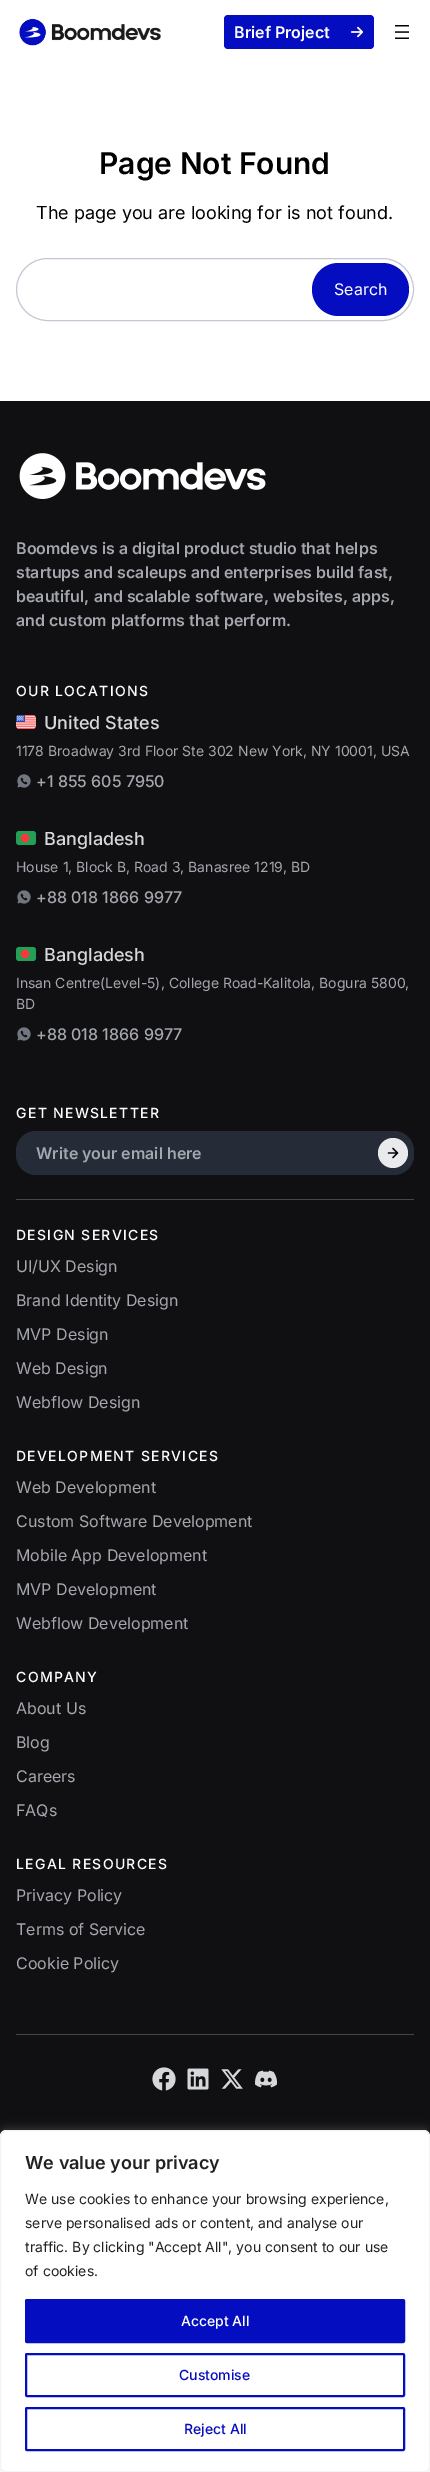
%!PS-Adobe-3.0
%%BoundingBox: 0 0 430 2472
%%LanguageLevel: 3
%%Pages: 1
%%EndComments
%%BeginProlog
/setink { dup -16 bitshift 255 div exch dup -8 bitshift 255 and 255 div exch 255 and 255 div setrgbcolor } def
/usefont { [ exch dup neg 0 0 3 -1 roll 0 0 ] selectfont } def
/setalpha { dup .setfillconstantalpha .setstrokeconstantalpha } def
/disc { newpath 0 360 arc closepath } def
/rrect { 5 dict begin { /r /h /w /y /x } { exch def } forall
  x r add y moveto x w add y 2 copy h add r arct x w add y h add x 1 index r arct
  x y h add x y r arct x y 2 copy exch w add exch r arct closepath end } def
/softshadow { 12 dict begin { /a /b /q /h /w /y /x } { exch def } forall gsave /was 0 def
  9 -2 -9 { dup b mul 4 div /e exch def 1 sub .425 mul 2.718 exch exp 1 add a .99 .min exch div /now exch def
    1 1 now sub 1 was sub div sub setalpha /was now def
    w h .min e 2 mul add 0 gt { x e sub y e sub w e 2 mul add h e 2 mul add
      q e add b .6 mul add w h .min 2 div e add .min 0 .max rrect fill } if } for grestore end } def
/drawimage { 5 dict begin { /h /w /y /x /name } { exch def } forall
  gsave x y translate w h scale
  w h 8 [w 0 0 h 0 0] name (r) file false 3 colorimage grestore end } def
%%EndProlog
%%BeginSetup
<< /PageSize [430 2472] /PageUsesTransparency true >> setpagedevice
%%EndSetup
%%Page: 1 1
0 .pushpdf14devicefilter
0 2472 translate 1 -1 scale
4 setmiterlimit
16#FFFFFF setink
0 0 430 2472 rectfill
(img1.raw) 19 18 142 28 drawimage
16#040DBF setink
224 15 150 34 4 rrect fill
/Inter-SemiBold 16 usefont
16#FFFFFF setink
234 38 moveto (Brief Project) show
(img2.raw) 351 26 12 12 drawimage
(img3.raw) 395 25 14 14 drawimage
/Inter-SemiBold 30 usefont
16#000000 setink
99 174 moveto (Page Not Found) show
/Inter-Regular 18 usefont
36 219 moveto (The page you are looking for is not found.) show
16#C3C8D2 setink
16.5 258.5 397 62 31 rrect stroke
16#040DBF setink
312 263 97 53 26.5 rrect fill
/Inter-Regular 16 usefont
16#FFFFFF setink
334 295 moveto (Search) show
16#101012 setink
0 401 430 1735 rectfill
16#414651 setink
16 1199 398 1 rectfill
(img4.raw) 19 453 247 46 drawimage
/Inter-SemiBold 16 usefont
16#A4A7AE setink
[
    [(Boomdevs is a digital product studio that helps) 16 554]
    [(startups and scaleups and enterprises build fast,) 16 578]
    [(beautiful, and scalable software, websites, apps,) 16 602]
    [(and custom platforms that perform.) 16 626]
] { aload pop moveto show } forall
/Inter-Medium 14 usefont
16#FFFFFF setink
16 696 moveto 1.3 0 (OUR LOCATIONS) ashow
(img5.raw) 16 715 20 14 drawimage
/Inter-Medium 18 usefont
16#D5D7DA setink
44 729 moveto (United States) show
/Inter-Regular 14 usefont
16#A4A7AE setink
16 756 moveto (1178 Broadway 3rd Floor Ste 302 New York, NY 10001, USA) show
(img6.raw) 17 774 14 14 drawimage
/Inter-Medium 16 usefont
36 787 moveto (+1 855 605 7950) show
(img7.raw) 16 831 20 14 drawimage
/Inter-Medium 18 usefont
16#D5D7DA setink
44 845 moveto (Bangladesh) show
/Inter-Regular 14 usefont
16#A4A7AE setink
16 872 moveto (House 1, Block B, Road 3, Banasree 1219, BD) show
(img6.raw) 17 890 14 14 drawimage
/Inter-Medium 16 usefont
36 903 moveto (+88 018 1866 9977) show
(img7.raw) 16 947 20 14 drawimage
/Inter-Medium 18 usefont
16#D5D7DA setink
44 961 moveto (Bangladesh) show
/Inter-Regular 14 usefont
16#A4A7AE setink
16 988 moveto (Insan Centre\(Level-5\), College Road-Kalitola, Bogura 5800,) show
16 1009 moveto (BD) show
(img6.raw) 17 1027 14 14 drawimage
/Inter-Medium 16 usefont
36 1040 moveto (+88 018 1866 9977) show
/Inter-Medium 14 usefont
16#FFFFFF setink
16 1118 moveto 1.3 0 (GET NEWSLETTER) ashow
16#252B37 setink
16 1131 398 44 20 rrect fill
/Inter-SemiBold 16 usefont
16#A4A7AE setink
36 1159 moveto (Write your email here) show
16#E9EAEB setink
393 1153 15 disc fill
16#00010B setink
1.3 setlinewidth
1 setlinecap
1 setlinejoin
388.5 1153 moveto 397.5 1153 lineto 393 1148.5 moveto 397.5 1153 lineto 393 1157.5 lineto stroke
/Inter-Medium 14 usefont
16#FFFFFF setink
16 1240 moveto 1.3 0 (DESIGN SERVICES) ashow
/Inter-Regular 16 usefont
16#A4A7AE setink
[
    [(UI/UX Design) 16 1272]
    [(Brand Identity Design) 16 1306]
    [(MVP Design) 16 1340]
    [(Web Design) 16 1374]
    [(Webflow Design) 16 1408]
] { aload pop moveto show } forall
/Inter-Medium 14 usefont
16#FFFFFF setink
16 1461 moveto 1.3 0 (DEVELOPMENT SERVICES) ashow
/Inter-Regular 16 usefont
16#A4A7AE setink
[
    [(Web Development) 16 1493]
    [(Custom Software Development) 16 1527]
    [(Mobile App Development) 16 1561]
    [(MVP Development) 16 1595]
    [(Webflow Development) 16 1629]
] { aload pop moveto show } forall
/Inter-Medium 14 usefont
16#FFFFFF setink
16 1682 moveto 1.3 0 (COMPANY) ashow
/Inter-Regular 16 usefont
16#A4A7AE setink
[
    [(About Us) 16 1714]
    [(Blog) 16 1748]
    [(Careers) 16 1782]
    [(FAQs) 16 1816]
] { aload pop moveto show } forall
/Inter-Medium 14 usefont
16#FFFFFF setink
16 1869 moveto 1.3 0 (LEGAL RESOURCES) ashow
/Inter-Regular 16 usefont
16#A4A7AE setink
[
    [(Privacy Policy) 16 1901]
    [(Terms of Service) 16 1935]
    [(Cookie Policy) 16 1969]
] { aload pop moveto show } forall
16#414651 setink
16 2034 398 1 rectfill
(img8.raw) 152 2067 24 24 drawimage
(img9.raw) 187 2068 22 22 drawimage
(img10.raw) 221 2069 22 20 drawimage
(img11.raw) 255 2070 22 18 drawimage
16#ACABAB setink
0 2129 430 342 6 5 0.3 softshadow
16#FFFFFF setink
0.5 2130.5 429 341 5.5 rrect gsave fill grestore
16#F4F4F4 setink
1 setlinewidth
0 setlinecap
0 setlinejoin
stroke
/Inter-SemiBold 18 usefont
16#212121 setink
25 2169 moveto (We value your privacy) show
/Inter-Regular 14 usefont
[
    [(We use cookies to enhance your browsing experience,) 25 2204]
    [(serve personalised ads or content, and analyse our) 25 2228]
    [(traffic. By clicking "Accept All", you consent to our use) 25 2252]
    [(of cookies.) 25 2276]
] { aload pop moveto show } forall
16#040DBF setink
26 2300 378 42 1 rrect gsave fill grestore
2 setlinewidth
stroke
/Inter-Medium 14 usefont
16#FFFFFF setink
181 2326 moveto (Accept All) show
16#040DBF setink
26 2354 378 42 1 rrect stroke
179 2380 moveto (Customise) show
26 2408 378 42 1 rrect stroke
184 2434 moveto (Reject All) show
.poppdf14devicefilter showpage
%%EOF
